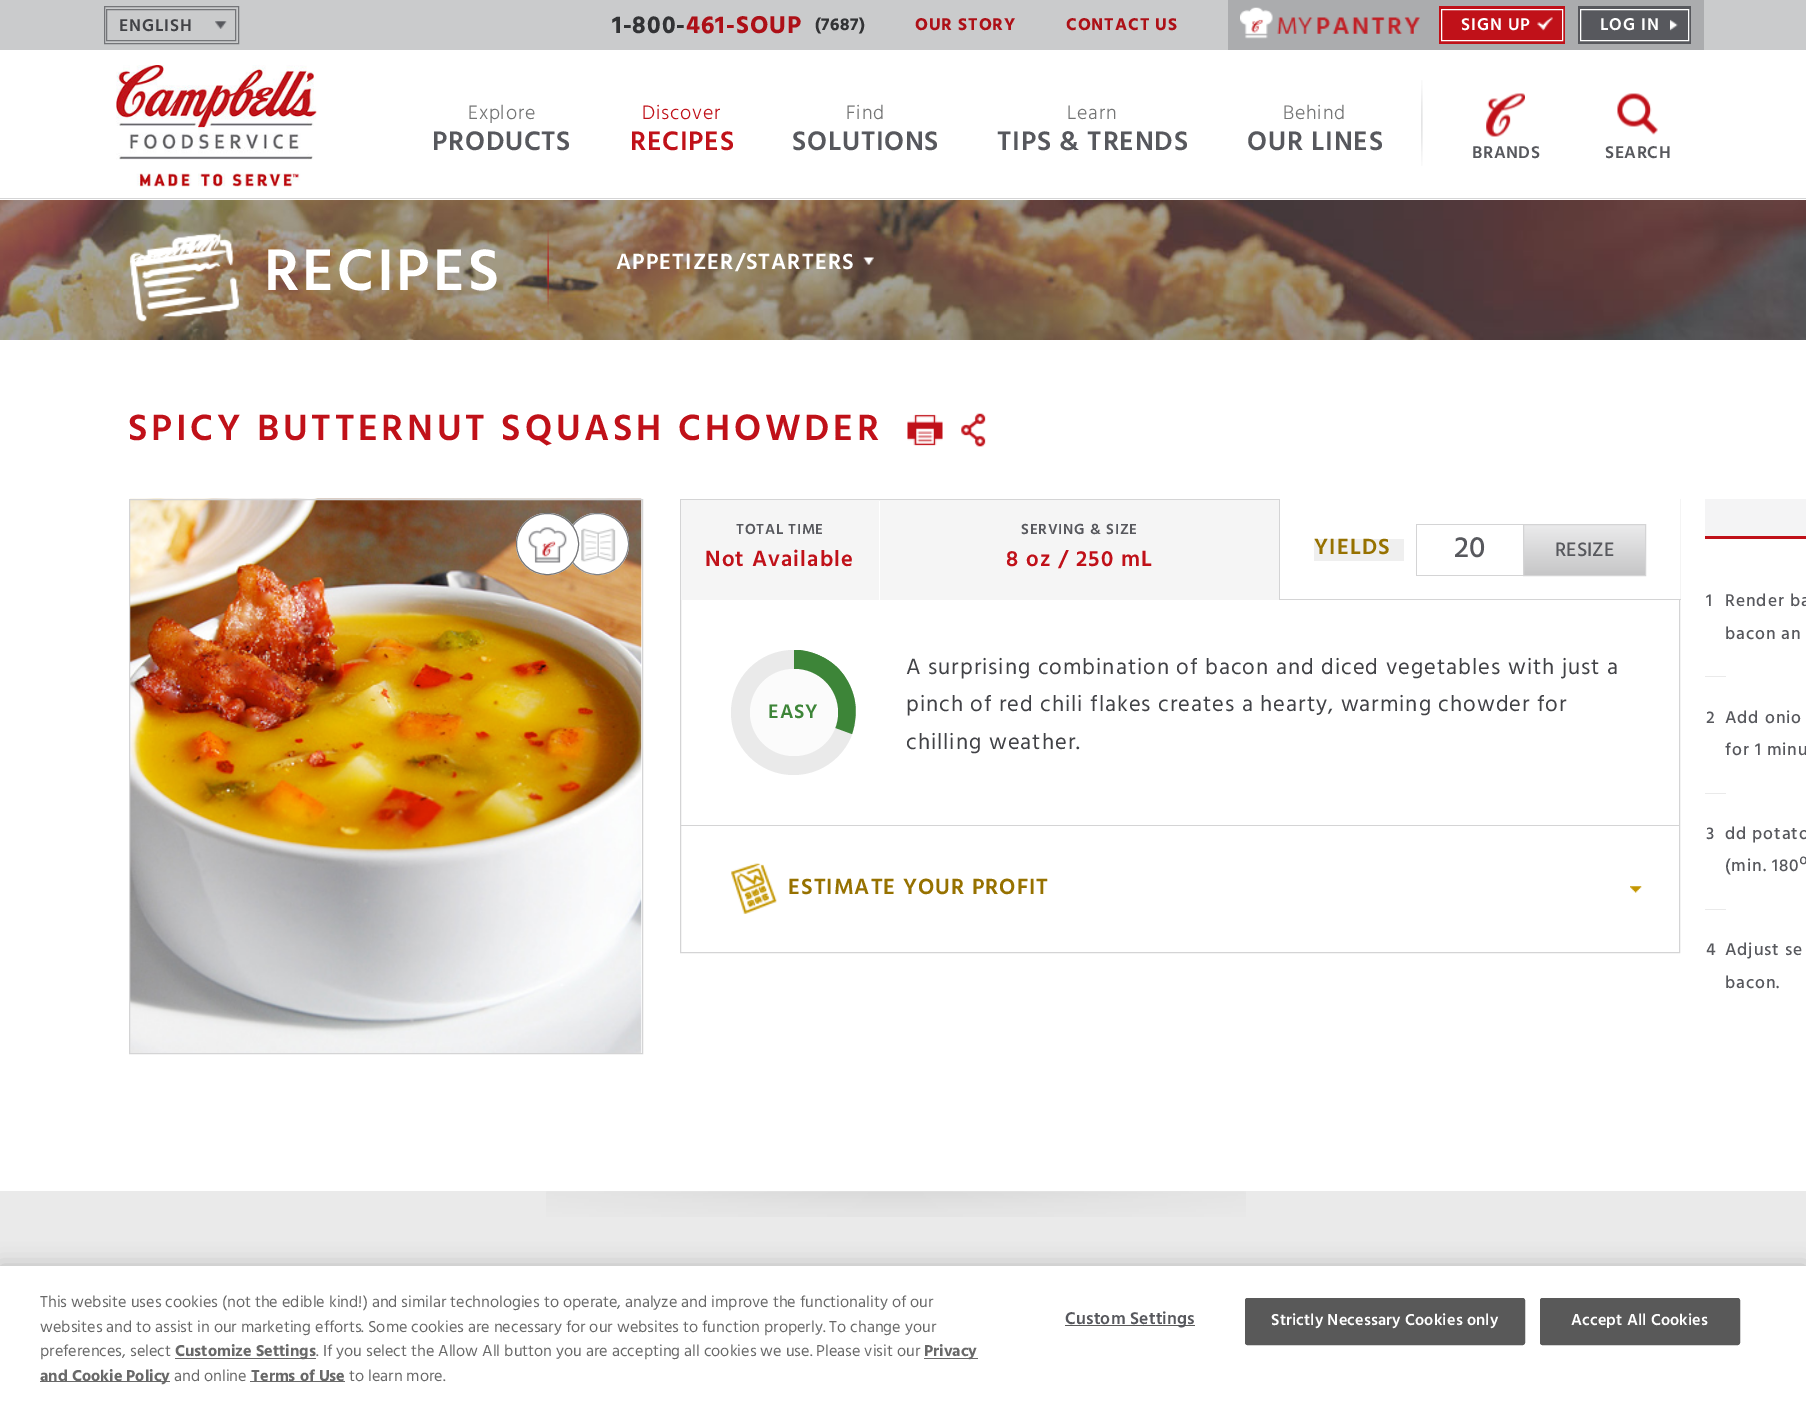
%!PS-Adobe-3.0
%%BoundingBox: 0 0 1806 1401
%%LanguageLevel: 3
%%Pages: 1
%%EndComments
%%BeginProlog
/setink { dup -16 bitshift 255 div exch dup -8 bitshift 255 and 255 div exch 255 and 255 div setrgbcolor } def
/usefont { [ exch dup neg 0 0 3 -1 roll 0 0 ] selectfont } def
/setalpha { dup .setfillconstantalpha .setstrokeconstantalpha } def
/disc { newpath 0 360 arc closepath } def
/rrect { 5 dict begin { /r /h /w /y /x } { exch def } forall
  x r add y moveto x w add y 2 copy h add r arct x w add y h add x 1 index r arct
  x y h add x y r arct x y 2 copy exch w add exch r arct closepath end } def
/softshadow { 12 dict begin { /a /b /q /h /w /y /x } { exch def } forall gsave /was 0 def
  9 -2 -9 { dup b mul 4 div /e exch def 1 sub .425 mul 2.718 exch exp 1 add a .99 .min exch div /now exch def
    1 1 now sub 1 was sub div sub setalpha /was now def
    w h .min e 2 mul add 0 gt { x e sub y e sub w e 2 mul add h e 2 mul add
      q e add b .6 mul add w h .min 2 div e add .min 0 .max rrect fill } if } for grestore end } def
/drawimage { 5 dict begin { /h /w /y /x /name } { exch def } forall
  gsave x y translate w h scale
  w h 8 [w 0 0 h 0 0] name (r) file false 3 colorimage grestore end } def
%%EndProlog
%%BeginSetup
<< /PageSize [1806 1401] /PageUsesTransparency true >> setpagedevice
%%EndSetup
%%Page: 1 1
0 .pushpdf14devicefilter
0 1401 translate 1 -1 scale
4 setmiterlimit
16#FFFFFF setink
0 0 1806 1401 rectfill
16#CACBCC setink
0 0 1806 50 rectfill
16#747578 setink
104.5 6.5 134 37 rectstroke
(img1.raw) 215 21 12 8 drawimage
106.5 9.5 129 31 rectstroke
/Hind-SemiBold 17.5 usefont
16#414246 setink
119 31 moveto 0.9 0 (ENGLISH) ashow
/Hind-Bold 25 usefont
16#323335 setink
612 33 moveto 1 0 (1-800-) ashow
16#AD1017 setink
686 33 moveto 1 0 (461-SOUP) ashow
/Hind-Bold 17.5 usefont
16#323335 setink
815 30 moveto 0.5 0 (\(7687\)) ashow
16#AD1017 setink
915 30 moveto 0.9 0 (OUR STORY) ashow
1066 30 moveto 0.9 0 (CONTACT US) ashow
16#ABACAE setink
1228 0 476 50 rectfill
(img2.raw) 1240 7 180 32 drawimage
16#C01119 setink
1439 6 126 38 rectfill
(img3.raw) 1537 17 16 14 drawimage
16#FFFFFF setink
1441.5 9.5 121 31 rectstroke
/Hind-SemiBold 17.5 usefont
1461 30 moveto 0.9 0 (SIGN UP) ashow
16#57585D setink
1578 6 113 38 rectfill
(img4.raw) 1670 19 8 12 drawimage
16#FFFFFF setink
1580.5 9.5 108 31 rectstroke
1600 30 moveto 0.9 0 (LOG IN) ashow
(img5.raw) 116 65 201 122 drawimage
/Hind-Light 20 usefont
16#747575 setink
468 119 moveto 0.75 0 (Explore) ashow
/Hind-SemiBold 27.5 usefont
16#57585D setink
432 150 moveto 0.75 0 (PRODUCTS) ashow
/Hind-Light 20 usefont
16#C01119 setink
642 119 moveto 0.75 0 (Discover) ashow
/Hind-SemiBold 27.5 usefont
630 150 moveto 0.75 0 (RECIPES) ashow
/Hind-Light 20 usefont
16#747575 setink
846 119 moveto 0.75 0 (Find) ashow
/Hind-SemiBold 27.5 usefont
16#57585D setink
792 150 moveto 0.75 0 (SOLUTIONS) ashow
/Hind-Light 20 usefont
16#747575 setink
1067 119 moveto 0.75 0 (Learn) ashow
/Hind-SemiBold 27.5 usefont
16#57585D setink
997 150 moveto 0.75 0 (TIPS & TRENDS) ashow
/Hind-Light 20 usefont
16#747575 setink
1283 119 moveto 0.75 0 (Behind) ashow
/Hind-SemiBold 27.5 usefont
16#57585D setink
1247 150 moveto 0.75 0 (OUR LINES) ashow
(img6.raw) 1421 80 2 86 drawimage
(img7.raw) 1486 93 39 44 drawimage
/Hind-SemiBold 17.5 usefont
1472 158 moveto 0.5 0 (BRANDS) ashow
(img8.raw) 1617 93 41 42 drawimage
1605 158 moveto 0.5 0 (SEARCH) ashow
16#D5D5D6 setink
0 198 1806 1 rectfill
(img9.raw) 0 200 1806 140 drawimage
(img10.raw) 129 233 110 89 drawimage
(img11.raw) 547 229 2 82 drawimage
/Hind-SemiBold 60 usefont
16#FFFFFF setink
264 290 moveto 3 0 (RECIPES) ashow
(img12.raw) 863 257 11 8 drawimage
/Hind-SemiBold 22.5 usefont
616 269 moveto 1.1 0 (APPETIZER/STARTERS) ashow
/Hind-SemiBold 37.5 usefont
16#C01119 setink
128 440 moveto 3.75 0 (SPICY BUTTERNUT SQUASH CHOWDER) ashow
(img13.raw) 907 414 36 32 drawimage
(img14.raw) 961 413 25 34 drawimage
(img15.raw) 130 498 512 555 drawimage
16#D4D4D5 setink
129.5 499.5 513 554 rectstroke
16#FFFFFF setink
566 513 63 62 31 rrect fill
(img17.raw) 581 528 35 34 drawimage
16#818286 setink
566.5 513.5 62 61 30.5 rrect stroke
16#FFFFFF setink
516 513 63 62 31 rrect fill
(img16.raw) 528 527 39 36 drawimage
16#747578 setink
516.5 513.5 62 61 30.5 rrect stroke
16#D4D4D5 setink
680.5 499.5 999 453 rectstroke
16#F5F5F5 setink
681 500 198 100 rectfill
/Hind-SemiBold 15 usefont
16#57585D setink
736 534 moveto 0.75 0 (TOTAL TIME) ashow
/Hind-SemiBold 22.5 usefont
16#C01119 setink
705 566 moveto 1.1 0 (Not Available) ashow
16#F5F5F5 setink
880 500 399 100 rectfill
16#D4D4D5 setink
1279 500 1 100 rectfill
/Hind-SemiBold 15 usefont
16#57585D setink
1021 534 moveto 0.75 0 (SERVING & SIZE) ashow
/Hind-SemiBold 22.5 usefont
16#C01119 setink
1006 566 moveto 1.1 0 (8 oz / 250 mL) ashow
[
    [1280 499 400 100 16#FFFFFF]
    [1280 599 401 1 16#D4D4D5]
    [1314 539 90 22 16#EFEFEF]
] { aload pop setink rectfill } forall
16#967100 setink
1314 554 moveto 1.1 0 (YIELDS) ashow
[
    [1416 524 107 1 16#D4D4D5]
    [1416 575 107 1 16#D4D4D5]
    [1416 524 1 52 16#D4D4D5]
] { aload pop setink rectfill } forall
/Hind-Medium 30 usefont
16#57585D setink
1454 557 moveto (20) show
gsave 1524 525 moveto 1645 525 lineto 1645 575 lineto 1524 575 lineto closepath clip newpath
<< /ShadingType 2 /ColorSpace /DeviceRGB /Coords [1584 525 1584 575] /Extend [true true] /Function << /FunctionType 2 /Domain [0 1] /C0 [0.922 0.922 0.925] /C1 [0.776 0.776 0.78] /N 1 >> >> shfill grestore
16#D4D4D5 setink
1523.5 524.5 122 51 rectstroke
/Hind-Medium 20 usefont
16#57585D setink
1555 556 moveto (RESIZE) show
16#EAEAEA setink
793.5 712.5 62.5 disc fill
gsave
794 650 62 125 rectclip
16#3D8538 setink
842 673 moveto 845 677 lineto 742 748 lineto 708 699 756 634 813 653 curveto 825 657 835 664 842 673 curveto closepath fill
735 691 moveto 756 634 839 638 854 697 curveto 857 709 856 722 852 734 curveto closepath fill
grestore
16#FBFBFB setink
750 669 88 87 43.5 rrect fill
/Hind-SemiBold 20 usefont
16#3D8538 setink
768 718 moveto 1 0 (EASY) ashow
/Hind-Regular 22.5 usefont
16#414246 setink
906 674 moveto 1 0 (A surprising combination of bacon and diced vegetables with just a) ashow
906 711 moveto 1 0 (pinch of red chili flakes creates a hearty, warming chowder for) ashow
906 749 moveto 1 0 (chilling weather.) ashow
16#D4D4D5 setink
681 825 998 1 rectfill
(img18.raw) 1630 886 12 7 drawimage
(img19.raw) 731 863 46 51 drawimage
/Hind-SemiBold 22.5 usefont
16#967100 setink
788 894 moveto 1 0 (ESTIMATE YOUR PROFIT) ashow
16#F4F4F5 setink
1705 499 101 37 rectfill
16#C01119 setink
1705 536 101 3 rectfill
/Hind-Medium 17.5 usefont
16#57585D setink
1706 606 moveto 0.9 0 (1) ashow
1725 606 moveto 0.9 0 (Render ba) ashow
1725 639 moveto 0.9 0 (bacon an) ashow
16#EAEAEA setink
1705 676 21 1 rectfill
16#57585D setink
1706 723 moveto 0.9 0 (2) ashow
1725 723 moveto 0.9 0 (Add onio) ashow
1725 755 moveto 0.9 0 (for 1 minu) ashow
16#EAEAEA setink
1705 793 21 1 rectfill
16#57585D setink
1706 839 moveto 0.9 0 (3) ashow
1725 839 moveto 0.9 0 (dd potato) ashow
1725 871 moveto 0.9 0 (\(min. 180º) ashow
16#EAEAEA setink
1705 909 21 1 rectfill
16#57585D setink
1706 955 moveto 0.9 0 (4) ashow
1725 955 moveto 0.9 0 (Adjust se) ashow
1725 988 moveto 0.9 0 (bacon.) ashow
16#EAEAEA setink
0 1191 1806 75 rectfill
(img20.raw) 546 1191 700 26 drawimage
16#000000 setink
0 1266 1806 135 0 11 0.2 softshadow
16#FFFFFF setink
0 1266 1806 135 rectfill
/Hind-Regular 16.25 usefont
16#696969 setink
[
    [(This website uses cookies \(not the edible kind!\) and similar technologies to operate, analyze and improve the functionality of our) 40 1307]
    [(websites and to assist in our marketing efforts. Some cookies are necessary for our websites to function properly. To change your) 40 1332]
    [(preferences, select) 40 1356]
] { aload pop moveto show } forall
175 1358 141 1 rectfill
/Hind-Bold 16.25 usefont
175 1356 moveto (Customize Settings) show
/Hind-Regular 16.25 usefont
316 1356 moveto (. If you select the Allow All button you are accepting all cookies we use. Please visit our) show
924 1358 54 1 rectfill
/Hind-Bold 16.25 usefont
924 1356 moveto (Privacy) show
40 1381 130 1 rectfill
40 1381 moveto (and Cookie Policy) show
/Hind-Regular 16.25 usefont
174 1381 moveto (and online) show
250 1381 95 1 rectfill
/Hind-Bold 16.25 usefont
251 1381 moveto (Terms of Use) show
/Hind-Regular 16.25 usefont
349 1381 moveto (to learn more.) show
16#595959 setink
1065 1325 130 1 rectfill
/Hind-SemiBold 17.5 usefont
16#57585D setink
1065 1324 moveto 0.2 0 (Custom Settings) ashow
16#595959 setink
1245.5 1298.5 279 46 2 rrect gsave fill grestore
stroke
/Hind-SemiBold 16.25 usefont
16#FFFFFF setink
1271 1325 moveto 0.15 0 (Strictly Necessary Cookies only) ashow
16#595959 setink
1540.5 1298.5 199 46 2 rrect gsave fill grestore
stroke
16#FFFFFF setink
1571 1325 moveto 0.15 0 (Accept All Cookies) ashow
.poppdf14devicefilter showpage
%%EOF
